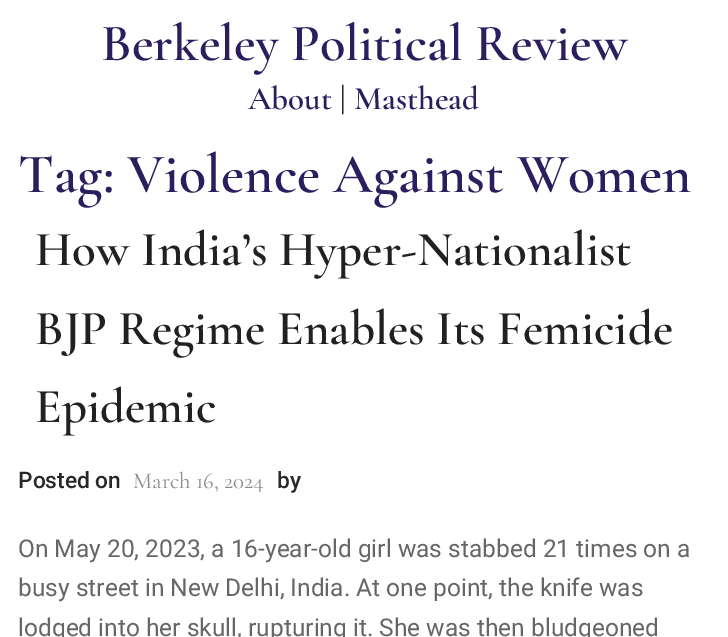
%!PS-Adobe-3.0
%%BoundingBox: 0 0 728 637
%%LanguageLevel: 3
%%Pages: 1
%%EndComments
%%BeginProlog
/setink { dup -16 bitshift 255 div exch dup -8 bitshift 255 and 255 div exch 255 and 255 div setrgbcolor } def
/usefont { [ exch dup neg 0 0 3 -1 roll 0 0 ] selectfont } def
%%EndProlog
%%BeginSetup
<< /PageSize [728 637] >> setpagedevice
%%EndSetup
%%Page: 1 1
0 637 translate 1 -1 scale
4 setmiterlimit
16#FFFFFF setink
0 0 728 637 rectfill
/CormorantGaramond-SemiBold 52.5 usefont
16#2B1D5E setink
101 60 moveto (Berkeley Political Review) show
/CormorantGaramond-SemiBold 33 usefont
248 109 moveto (About) show
16#282828 setink
340 109 moveto (|) show
16#2B1D5E setink
354 109 moveto (Masthead) show
/CormorantGaramond-SemiBold 56 usefont
18 192 moveto (Tag: Violence Against Women) show
/CormorantGaramond-SemiBold 49 usefont
16#212121 setink
[
    [(How India’s Hyper-Nationalist) 35 265]
    [(BJP Regime Enables Its Femicide) 35 344]
    [(Epidemic) 35 422]
] { aload pop moveto show } forall
/Roboto-Medium 22.75 usefont
16#282828 setink
18 488 moveto (Posted on) show
/CormorantGaramond-Regular 22.75 usefont
16#8A8A8C setink
133 488 moveto (March 16, 2024) show
/Roboto-Medium 22.75 usefont
16#282828 setink
277 488 moveto (by) show
/Roboto-Regular 24.5 usefont
16#666666 setink
[
    [(On May 20, 2023, a 16-year-old girl was stabbed 21 times on a) 18 557]
    [(busy street in New Delhi, India. At one point, the knife was) 18 596]
    [(lodged into her skull, rupturing it. She was then bludgeoned) 18 636]
] { aload pop moveto show } forall
showpage
%%EOF
